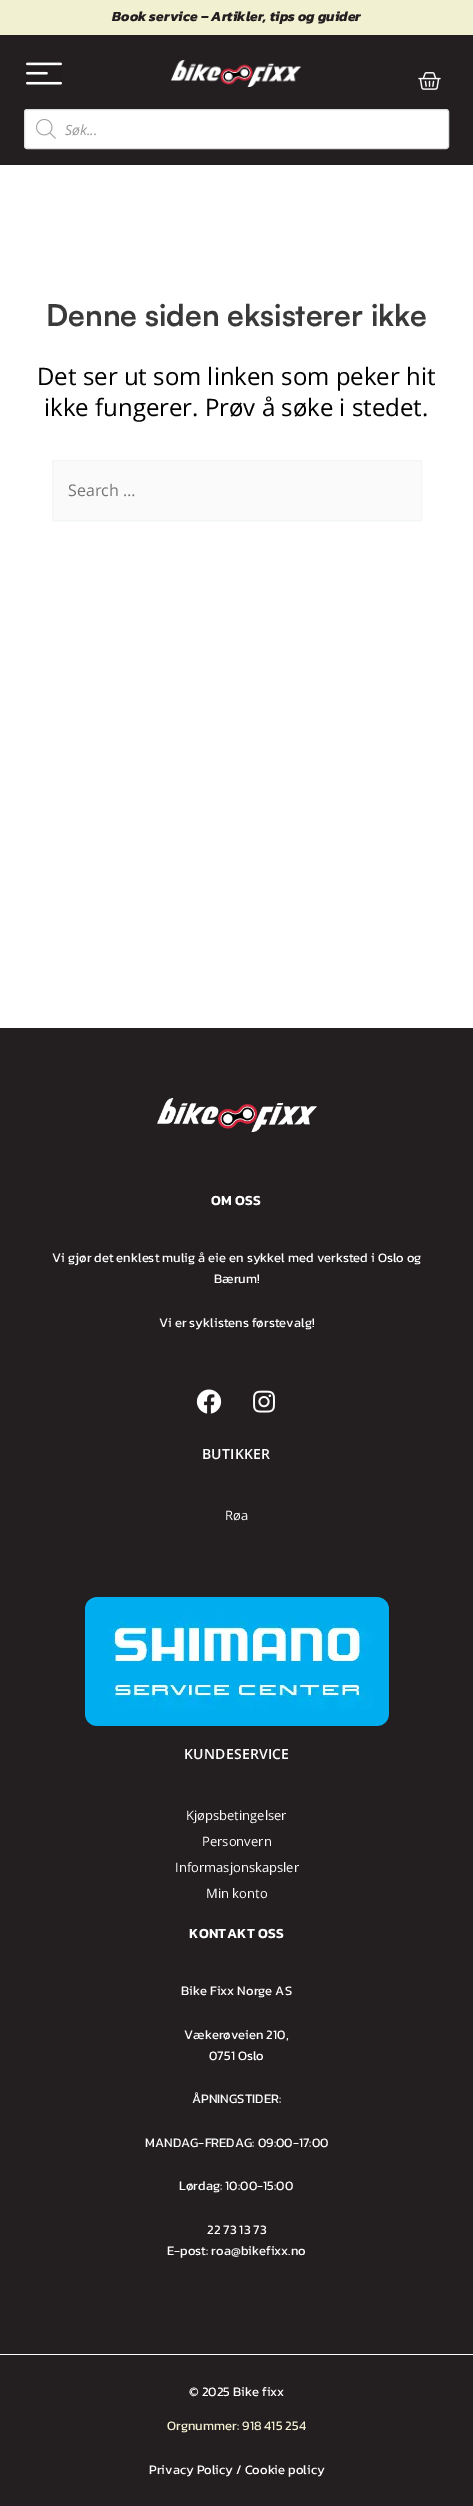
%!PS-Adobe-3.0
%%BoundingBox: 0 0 473 2506
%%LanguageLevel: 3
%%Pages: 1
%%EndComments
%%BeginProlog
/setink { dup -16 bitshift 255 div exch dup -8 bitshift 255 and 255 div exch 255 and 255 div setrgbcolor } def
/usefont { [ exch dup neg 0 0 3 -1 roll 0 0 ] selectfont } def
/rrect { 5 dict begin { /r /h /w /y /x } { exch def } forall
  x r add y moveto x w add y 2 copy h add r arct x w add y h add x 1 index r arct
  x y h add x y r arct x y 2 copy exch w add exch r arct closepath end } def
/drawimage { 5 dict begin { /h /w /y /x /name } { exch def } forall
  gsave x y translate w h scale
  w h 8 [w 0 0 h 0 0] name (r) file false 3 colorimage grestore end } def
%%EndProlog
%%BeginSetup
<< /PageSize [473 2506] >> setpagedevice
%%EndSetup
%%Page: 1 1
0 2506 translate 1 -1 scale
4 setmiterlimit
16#FFFFFF setink
0 0 473 2506 rectfill
16#F1F0D1 setink
0 0 473 35 rectfill
/Kanit-BoldItalic 14 usefont
16#231F20 setink
112 21 moveto (Book service – Artikler, tips og guider) show
0 35 473 130 rectfill
(img1.raw) 26 62 36 23 drawimage
(img2.raw) 171 60 130 27 drawimage
(img3.raw) 418 72 23 18 drawimage
16#FFFFFF setink
24.5 109.5 424 39 2.5 rrect gsave fill grestore
16#DDDDDD setink
stroke
(img4.raw) 36 119 20 20 drawimage
/OpenSans-Italic 14 usefont
16#999999 setink
65 135 moveto (Søk...) show
/Satoshi-Bold 30 usefont
16#3A3A3A setink
46 326 moveto (Denne siden eksisterer ikke) show
/OpenSans-Regular 24 usefont
16#000000 setink
37 385 moveto (Det ser ut som linken som peker hit) show
44 416 moveto (ikke fungerer. Prøv å søke i stedet.) show
16#FAFAFA setink
52.5 460.5 369 60 1.5 rrect gsave fill grestore
16#F2F5F7 setink
stroke
/OpenSans-Regular 16 usefont
16#757575 setink
68 496 moveto (Search …) show
16#231F20 setink
0 1028 473 1478 rectfill
(img5.raw) 157 1098 160 34 drawimage
/Kanit-SemiBold 14 usefont
16#FFFFFF setink
211 1205 moveto 0.25 0 (OM OSS) ashow
/Kanit-Regular 13 usefont
[
    [(Vi gjør det enklest mulig å eie en sykkel med verksted i Oslo og) 52 1262]
    [(Bærum!) 214 1283]
    [(Vi er syklistens førstevalg!) 159 1327]
] { aload pop moveto show } forall
(img6.raw) 196 1389 26 25 drawimage
(img7.raw) 253 1390 22 23 drawimage
/OpenSans-SemiBold 14 usefont
202 1459 moveto 0.25 0 (BUTIKKER) ashow
/OpenSans-Regular 13 usefont
225 1520 moveto (Røa) show
(img8.raw) 85 1597 304 129 drawimage
/OpenSans-SemiBold 14 usefont
184 1759 moveto 0.25 0 (KUNDESERVICE) ashow
/OpenSans-Regular 13 usefont
[
    [(Kjøpsbetingelser) 186 1820]
    [(Personvern) 202 1846]
    [(Informasjonskapsler) 175 1872]
    [(Min konto) 206 1898]
] { aload pop moveto show } forall
/Kanit-SemiBold 14 usefont
189 1938 moveto 0.25 0 (KONTAKT OSS) ashow
/Kanit-Regular 13 usefont
[
    [(Bike Fixx Norge AS) 181 1995]
    [(Vækerøveien 210,) 184 2039]
    [(0751 Oslo) 209 2060]
    [(ÅPNINGSTIDER:) 192 2103]
    [(MANDAG-FREDAG: 09:00-17:00) 145 2147]
    [(Lørdag: 10:00-15:00) 179 2190]
    [(22 73 13 73) 207 2234]
    [(E-post: roa@bikefixx.no) 167 2255]
] { aload pop moveto show } forall
0 2354 473 1 rectfill
189 2396 moveto (© 2025 Bike fixx) show
16#F1F0D1 setink
167 2430 moveto (Orgnummer: 918 415 254) show
16#FFFFFF setink
149 2474 moveto (Privacy Policy / Cookie policy) show
showpage
%%EOF
